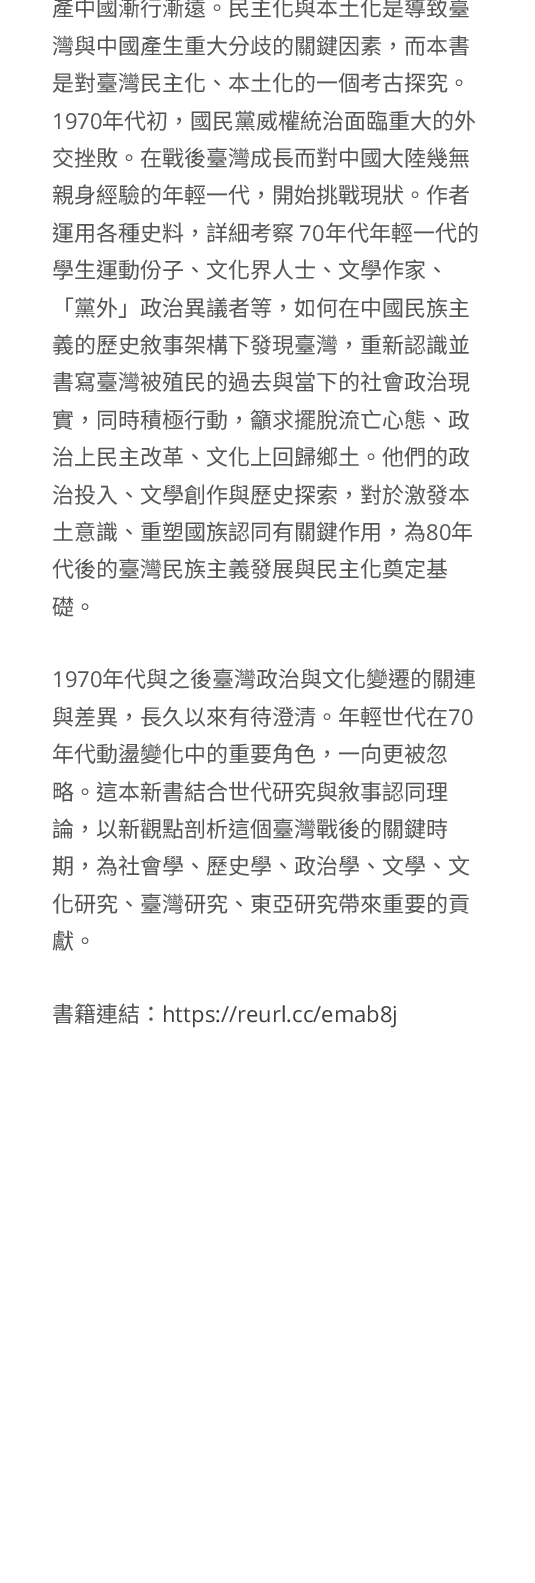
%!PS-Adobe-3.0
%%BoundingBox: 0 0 535 1583
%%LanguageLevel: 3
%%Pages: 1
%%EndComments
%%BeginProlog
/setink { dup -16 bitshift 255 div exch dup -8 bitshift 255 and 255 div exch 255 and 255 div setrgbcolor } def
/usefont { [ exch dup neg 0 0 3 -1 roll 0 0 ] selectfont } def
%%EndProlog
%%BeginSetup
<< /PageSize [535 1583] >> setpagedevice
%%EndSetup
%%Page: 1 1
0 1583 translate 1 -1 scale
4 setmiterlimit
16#FFFFFF setink
0 0 535 1583 rectfill
/NotoSansCJKTC-Regular 22 usefont
16#555555 setink
[
    [(產中國漸行漸遠。民主化與本土化是導致臺) 52 16]
    [(灣與中國產生重大分歧的關鍵因素，而本書) 52 54]
    [(是對臺灣民主化、本土化的一個考古探究。) 52 91]
] { aload pop moveto show } forall
/OpenSans-Regular 22 usefont
52 129 moveto (1970) show
/NotoSansCJKTC-Regular 22 usefont
[
    [(年代初，國民黨威權統治面臨重大的外) 102 129]
    [(交挫敗。在戰後臺灣成長而對中國大陸幾無) 52 166]
    [(親身經驗的年輕一代，開始挑戰現狀。作者) 52 203]
    [(運用各種史料，詳細考察) 52 241]
] { aload pop moveto show } forall
/OpenSans-Regular 22 usefont
299 241 moveto (70) show
/NotoSansCJKTC-Regular 22 usefont
[
    [(年代年輕一代的) 325 241]
    [(學生運動份子、文化界人士、文學作家、) 52 278]
    [(「黨外」政治異議者等，如何在中國民族主) 52 316]
    [(義的歷史敘事架構下發現臺灣，重新認識並) 52 353]
    [(書寫臺灣被殖民的過去與當下的社會政治現) 52 390]
    [(實，同時積極行動，籲求擺脫流亡心態、政) 52 428]
    [(治上民主改革、文化上回歸鄉土。他們的政) 52 465]
    [(治投入、文學創作與歷史探索，對於激發本) 52 503]
    [(土意識、重塑國族認同有關鍵作用，為) 52 540]
] { aload pop moveto show } forall
/OpenSans-Regular 22 usefont
426 540 moveto (80) show
/NotoSansCJKTC-Regular 22 usefont
[
    [(年) 451 540]
    [(代後的臺灣民族主義發展與民主化奠定基) 52 577]
    [(礎。) 52 615]
] { aload pop moveto show } forall
/OpenSans-Regular 22 usefont
52 687 moveto (1970) show
/NotoSansCJKTC-Regular 22 usefont
102 687 moveto (年代與之後臺灣政治與文化變遷的關連) show
52 725 moveto (與差異，長久以來有待澄清。年輕世代在) show
/OpenSans-Regular 22 usefont
448 725 moveto (70) show
/NotoSansCJKTC-Regular 22 usefont
[
    [(年代動盪變化中的重要角色，一向更被忽) 52 762]
    [(略。這本新書結合世代研究與敘事認同理) 52 800]
    [(論，以新觀點剖析這個臺灣戰後的關鍵時) 52 837]
    [(期，為社會學、歷史學、政治學、文學、文) 52 874]
    [(化研究、臺灣研究、東亞研究帶來重要的貢) 52 912]
    [(獻。) 52 949]
    [(書籍連結：) 52 1022]
] { aload pop moveto show } forall
/OpenSans-Regular 22 usefont
16#404040 setink
162 1022 moveto (https://reurl.cc/emab8j) show
showpage
%%EOF
